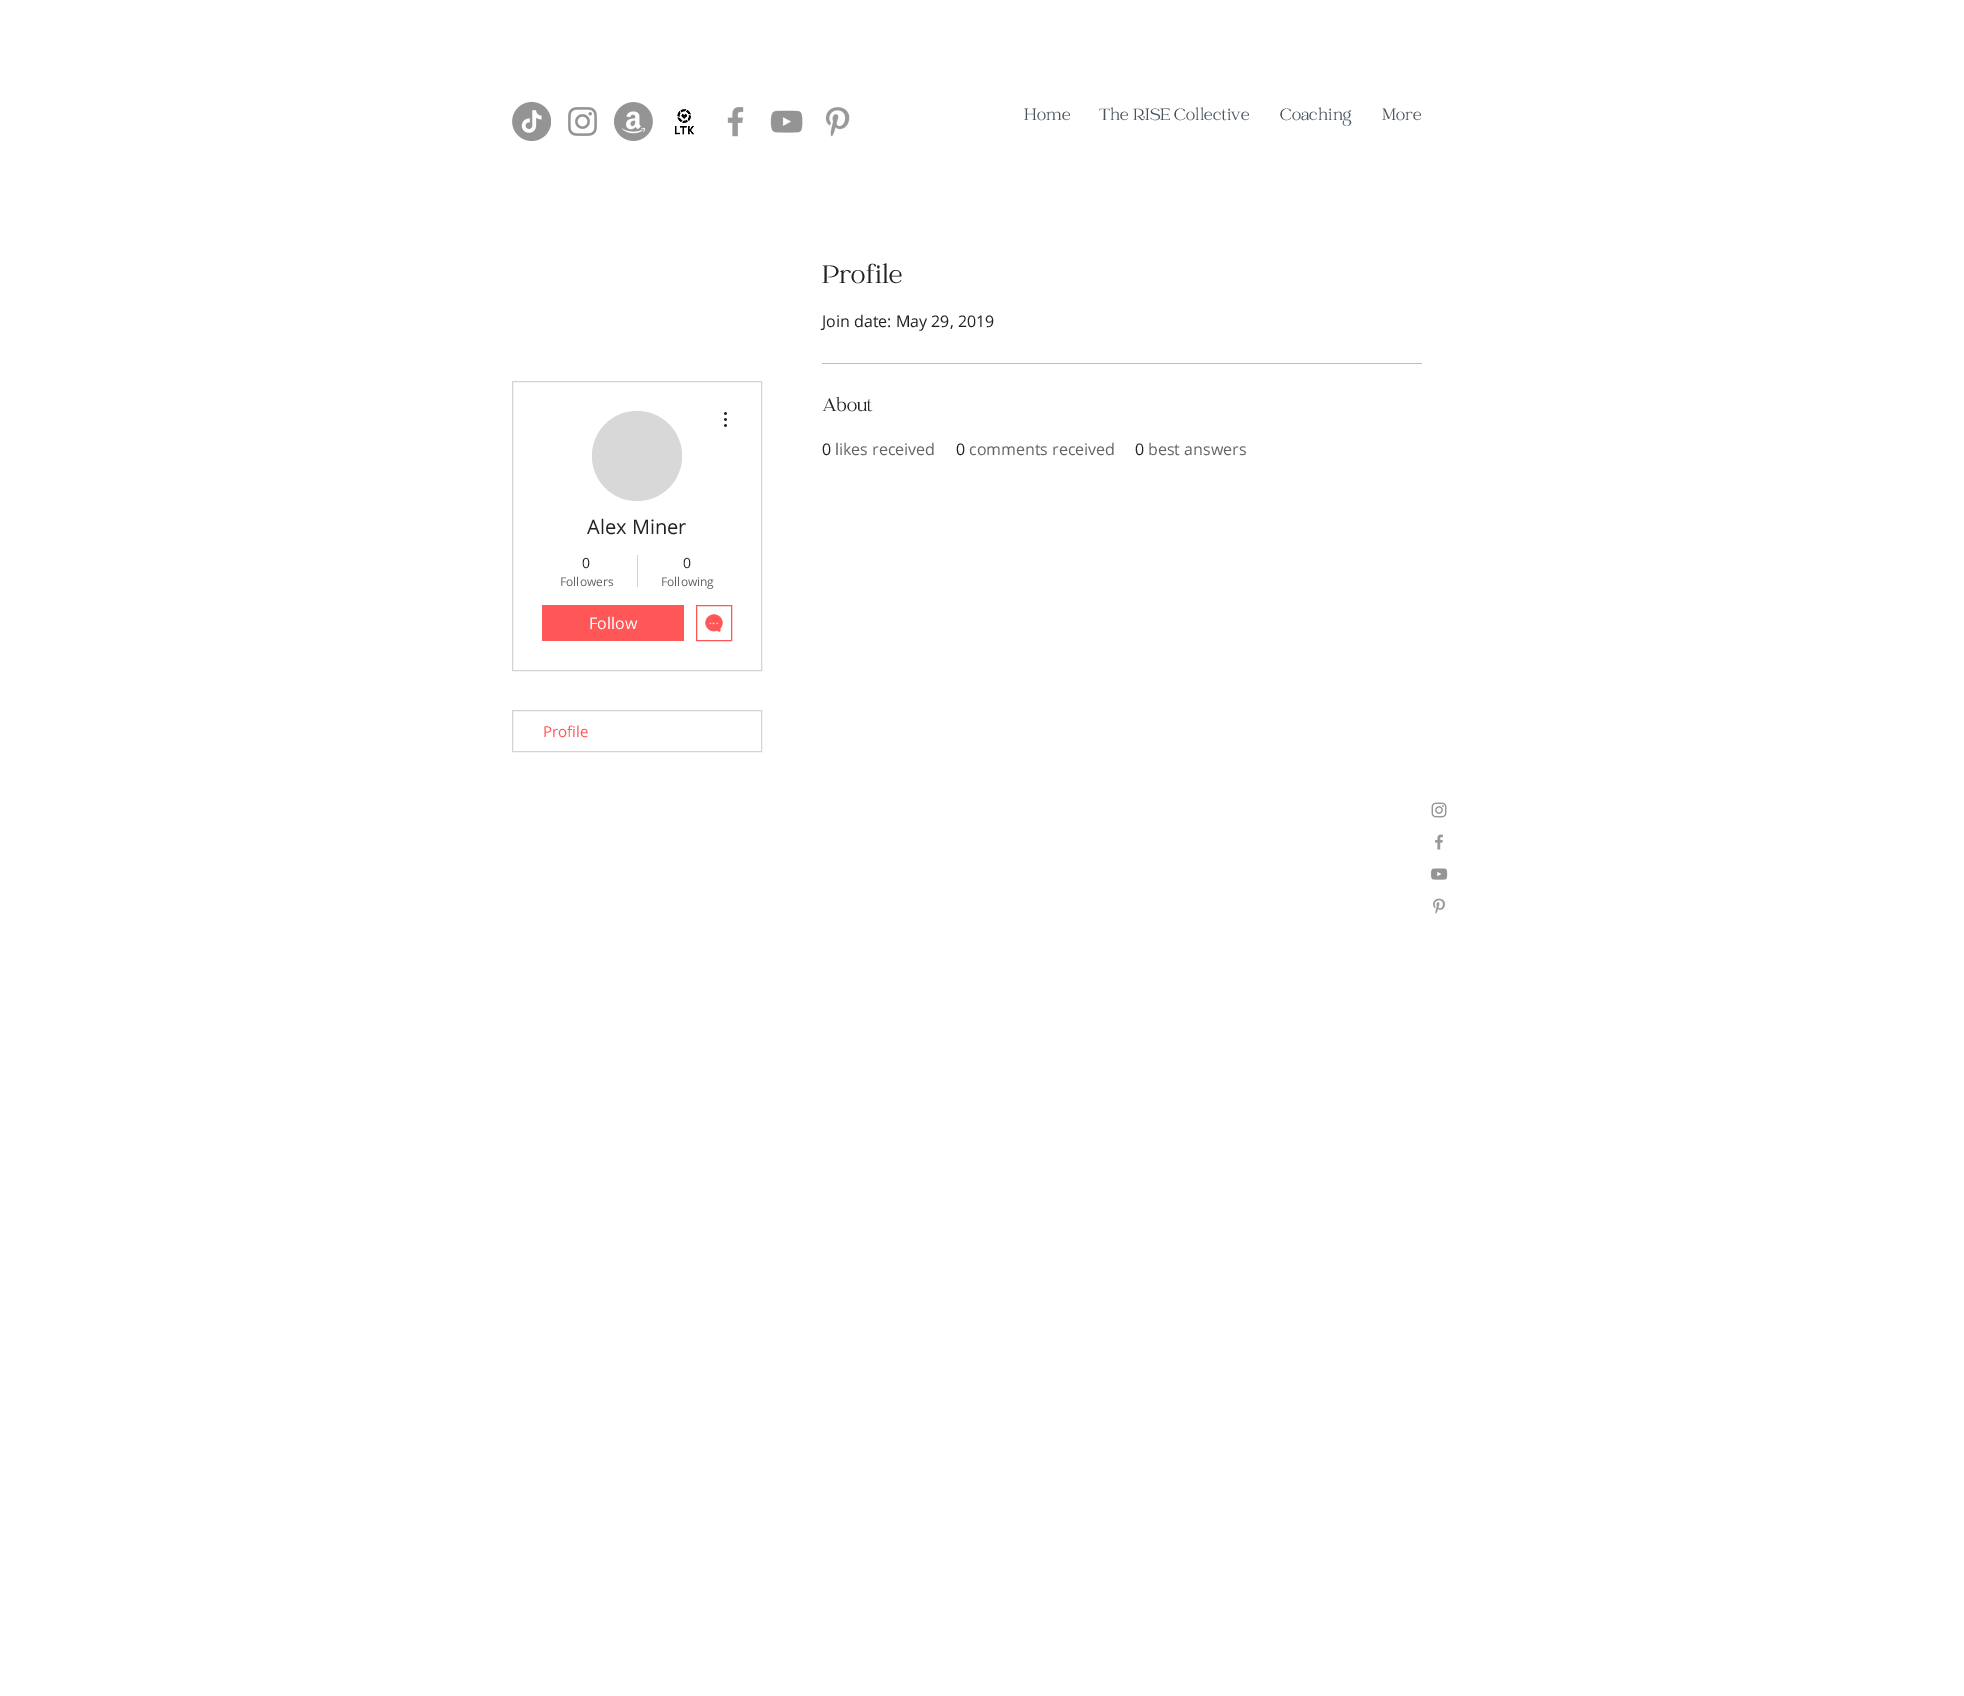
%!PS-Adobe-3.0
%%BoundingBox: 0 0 1964 1696
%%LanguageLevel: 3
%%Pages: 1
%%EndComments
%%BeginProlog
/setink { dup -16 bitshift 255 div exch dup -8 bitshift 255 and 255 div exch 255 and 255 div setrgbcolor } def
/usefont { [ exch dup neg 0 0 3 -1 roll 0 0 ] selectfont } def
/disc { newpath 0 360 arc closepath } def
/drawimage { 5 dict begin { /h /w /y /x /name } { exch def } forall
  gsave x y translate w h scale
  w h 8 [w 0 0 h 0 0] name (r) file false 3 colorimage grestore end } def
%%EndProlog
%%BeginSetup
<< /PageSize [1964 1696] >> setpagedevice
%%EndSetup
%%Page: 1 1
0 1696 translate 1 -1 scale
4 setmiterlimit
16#FFFFFF setink
0 0 1964 1696 rectfill
(img1.raw) 512 102 39 39 drawimage
(img2.raw) 568 107 29 29 drawimage
(img3.raw) 614 102 39 39 drawimage
(img4.raw) 674 107 20 28 drawimage
(img5.raw) 727 107 17 30 drawimage
(img6.raw) 770 110 33 23 drawimage
(img7.raw) 825 107 25 30 drawimage
/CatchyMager-Regular 18 usefont
16#4A535B setink
[
    [(Home) 1024 120]
    [(The RISE Collective) 1099 120]
    [(Coaching) 1280 120]
    [(More) 1382 120]
] { aload pop moveto show } forall
/CatchyMager-Regular 28 usefont
16#222222 setink
822 283 moveto (Profile) show
/OpenSans-Regular 16 usefont
822 327 moveto (Join date: May 29, 2019) show
16#BDBDBD setink
822 363 600 1 rectfill
/CatchyMager-Regular 20 usefont
16#222222 setink
822 411 moveto (About) show
/OpenSans-Regular 16 usefont
822 455 moveto (0) show
16#646464 setink
835 455 moveto (likes received) show
16#222222 setink
956 455 moveto (0) show
16#646464 setink
969 455 moveto (comments received) show
16#222222 setink
1135 455 moveto (0) show
16#646464 setink
1148 455 moveto (best answers) show
16#D3D3D3 setink
512.5 381.5 249 289 rectstroke
16#D8D8D8 setink
637 456 45 disc fill
(img8.raw) 724 412 3 15 drawimage
/OpenSans-Regular 20 usefont
16#222222 setink
587 534 moveto (Alex Miner) show
/OpenSans-Regular 14 usefont
582 568 moveto (0) show
/OpenSans-Regular 12 usefont
16#646464 setink
560 586 moveto (Followers) show
16#D3D3D3 setink
637 555 1 32 rectfill
/OpenSans-Regular 14 usefont
16#222222 setink
683 568 moveto (0) show
/OpenSans-Regular 12 usefont
16#646464 setink
661 586 moveto (Following) show
16#FF5757 setink
542 605 142 36 rectfill
/OpenSans-Regular 16 usefont
16#FFFFFF setink
589 629 moveto (Follow) show
16#FF5757 setink
696.5 605.5 35 35 rectstroke
(img9.raw) 705 614 18 18 drawimage
16#D3D3D3 setink
512.5 710.5 249 41 rectstroke
/OpenSans-Regular 15 usefont
16#FF5757 setink
543 737 moveto (Profile) show
(img10.raw) 1431 802 16 16 drawimage
(img11.raw) 1435 834 8 16 drawimage
(img12.raw) 1430 868 18 12 drawimage
(img13.raw) 1433 898 13 16 drawimage
showpage
%%EOF
